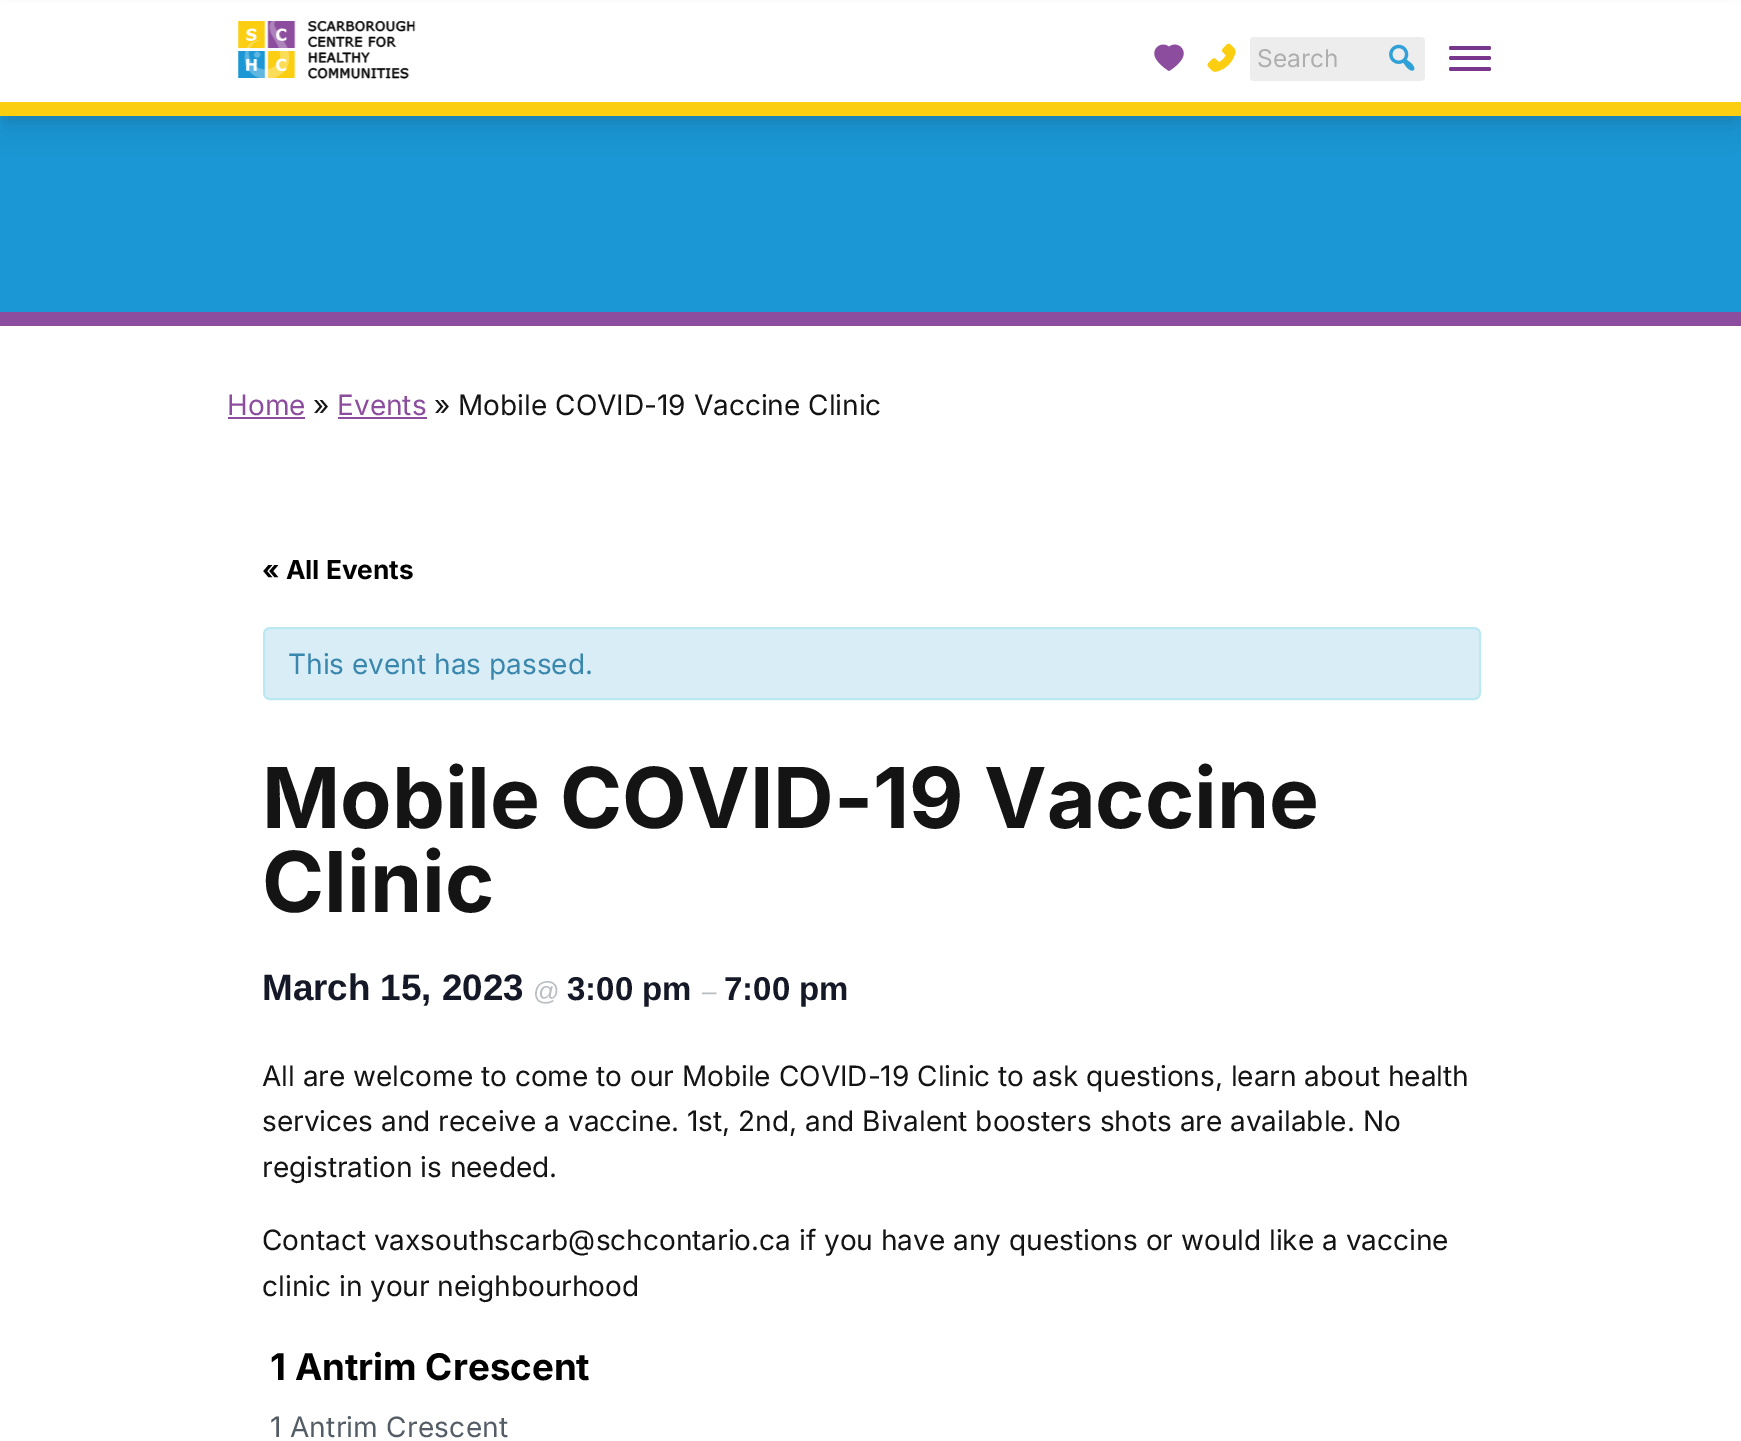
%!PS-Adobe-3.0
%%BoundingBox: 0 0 1741 1441
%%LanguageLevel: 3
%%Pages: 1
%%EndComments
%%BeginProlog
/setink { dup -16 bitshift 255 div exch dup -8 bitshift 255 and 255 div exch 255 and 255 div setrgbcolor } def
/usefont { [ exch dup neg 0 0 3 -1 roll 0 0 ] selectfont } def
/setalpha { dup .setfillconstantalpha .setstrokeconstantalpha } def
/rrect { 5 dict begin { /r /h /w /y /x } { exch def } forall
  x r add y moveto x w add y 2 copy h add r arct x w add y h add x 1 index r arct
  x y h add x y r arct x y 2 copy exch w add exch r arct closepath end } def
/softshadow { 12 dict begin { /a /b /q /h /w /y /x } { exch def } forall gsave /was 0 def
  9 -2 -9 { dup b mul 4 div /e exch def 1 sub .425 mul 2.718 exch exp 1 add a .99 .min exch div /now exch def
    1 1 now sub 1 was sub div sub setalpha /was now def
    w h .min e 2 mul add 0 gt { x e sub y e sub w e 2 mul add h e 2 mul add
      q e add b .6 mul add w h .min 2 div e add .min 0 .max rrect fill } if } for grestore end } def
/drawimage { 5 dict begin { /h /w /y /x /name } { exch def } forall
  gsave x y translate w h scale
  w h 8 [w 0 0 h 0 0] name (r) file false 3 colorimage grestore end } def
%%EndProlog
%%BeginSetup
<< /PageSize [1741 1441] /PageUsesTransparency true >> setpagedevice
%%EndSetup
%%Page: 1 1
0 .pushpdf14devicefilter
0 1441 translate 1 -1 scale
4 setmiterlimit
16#FFFFFF setink
0 0 1741 1441 rectfill
16#1A97D4 setink
0 116 1741 196 rectfill
16#000000 setink
4 11 1734 108 0 5 0.05 softshadow
5 23 1731 105 0 13 0.1 softshadow
16#FFFFFF setink
0 3 1741 99 rectfill
(img1.raw) 238 21 178 58 drawimage
(img2.raw) 1154 44 30 27 drawimage
(img3.raw) 1207 43 29 29 drawimage
16#EDEDED setink
1250 37 175 44 4 rrect fill
/Inter-Regular 24.5 usefont
16#AEAEAE setink
1257 67 moveto (Search) show
(img4.raw) 1389 44 26 27 drawimage
16#79368D setink
1449 46 42 4 2 rrect fill
1449 56 42 4 2 rrect fill
1449 67 42 4 2 rrect fill
16#FBCE11 setink
0 102 1741 14 rectfill
16#8C4D9E setink
0 312 1741 14 rectfill
/Inter-Regular 28 usefont
227 415 moveto (Home) show
228 417 77 2 rectfill
16#141414 setink
313 415 moveto (») show
16#8C4D9E setink
337 415 moveto (Events) show
338 417 89 2 rectfill
16#141414 setink
434 415 moveto (» Mobile COVID-19 Vaccine Clinic) show
/Inter-Bold 26.25 usefont
16#000000 setink
262 579 moveto (« All Events) show
16#D9EDF7 setink
264 628 1216 71 6 rrect gsave fill grestore
16#BCE8F1 setink
2 setlinewidth
stroke
/Inter-Regular 28 usefont
16#3A87AD setink
288 674 moveto (This event has passed.) show
/Inter-Bold 84 usefont
16#141414 setink
262 828 moveto (Mobile COVID-19 Vaccine) show
262 912 moveto (Clinic) show
/LiberationSans-Bold 36.75 usefont
16#141827 setink
262 1000 moveto (March 15, 2023) show
/LiberationSans-Regular 26.25 usefont
16#B9BEC2 setink
533 1000 moveto (@) show
/LiberationSans-Bold 33 usefont
16#141827 setink
567 1000 moveto (3:00 pm) show
/LiberationSans-Regular 26.25 usefont
16#B9BEC2 setink
702 1000 moveto (–) show
/LiberationSans-Bold 33 usefont
16#141827 setink
724 1000 moveto (7:00 pm) show
/Inter-Regular 28 usefont
16#141414 setink
[
    [(All are welcome to come to our Mobile COVID-19 Clinic to ask questions, learn about health) 262 1086]
    [(services and receive a vaccine. 1st, 2nd, and Bivalent boosters shots are available. No) 262 1131]
    [(registration is needed.) 262 1177]
    [(Contact vaxsouthscarb@schcontario.ca if you have any questions or would like a vaccine) 262 1250]
    [(clinic in your neighbourhood) 262 1296]
] { aload pop moveto show } forall
/Inter-Bold 36.75 usefont
16#000000 setink
270 1380 moveto (1 Antrim Crescent) show
/Inter-Regular 28 usefont
16#545D66 setink
270 1437 moveto 0.25 0 (1 Antrim Crescent) ashow
.poppdf14devicefilter showpage
%%EOF
